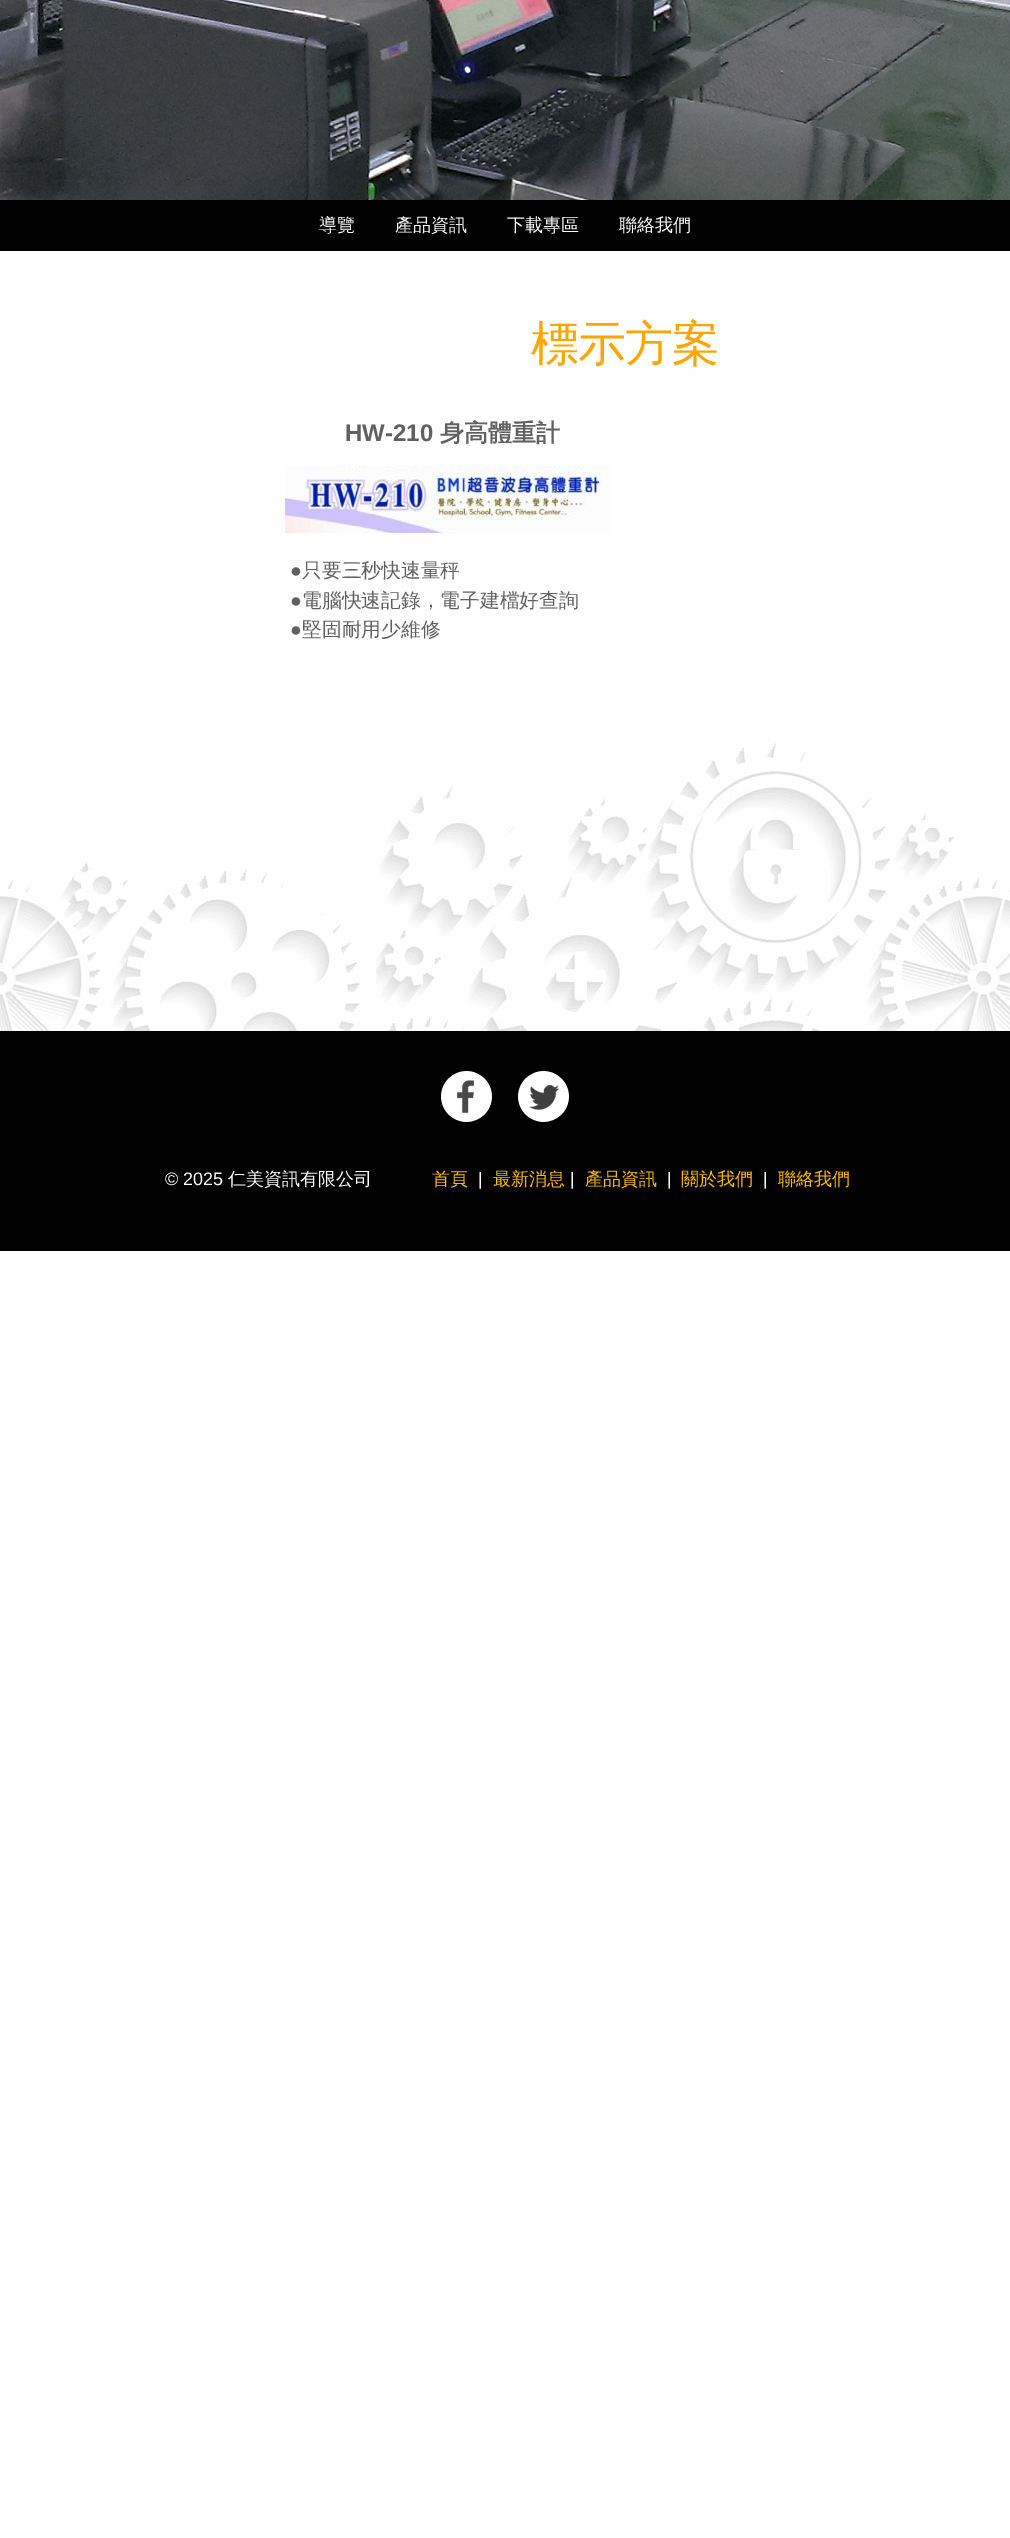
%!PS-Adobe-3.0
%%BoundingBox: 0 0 1010 2538
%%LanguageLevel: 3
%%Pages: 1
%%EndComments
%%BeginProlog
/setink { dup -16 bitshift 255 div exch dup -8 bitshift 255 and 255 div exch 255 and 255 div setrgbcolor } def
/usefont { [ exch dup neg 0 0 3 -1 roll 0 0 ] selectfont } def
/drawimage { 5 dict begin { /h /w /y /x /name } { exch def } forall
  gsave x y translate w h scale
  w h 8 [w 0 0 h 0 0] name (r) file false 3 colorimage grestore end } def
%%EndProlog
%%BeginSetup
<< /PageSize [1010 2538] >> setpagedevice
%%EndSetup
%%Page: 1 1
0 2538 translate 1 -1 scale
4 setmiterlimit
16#FFFFFF setink
0 0 1010 2538 rectfill
(img1.raw) 0 0 1010 200 drawimage
16#000000 setink
0 200 1010 51 rectfill
/WenQuanYiZenHei-Medium 18 usefont
16#FFFFFF setink
[
    [(導覽) 319 231]
    [(產品資訊) 395 231]
    [(下載專區) 507 231]
    [(聯絡我們) 619 231]
] { aload pop moveto show } forall
/WenQuanYiZenHei-Medium 48 usefont
16#FFA502 setink
531 360 moveto -1 0 (標示方案) ashow
/LiberationSans-Bold 24 usefont
16#606060 setink
345 441 moveto (HW-210) show
/WenQuanYiZenHei-Bold 24 usefont
440 441 moveto (身高體重計) show
(img2.raw) 285 466 325 67 drawimage
/LiberationSans-Regular 19.75 usefont
290 577 moveto (●) show
/WenQuanYiZenHei-Medium 19.75 usefont
302 577 moveto (只要三秒快速量秤) show
/LiberationSans-Regular 19.75 usefont
290 607 moveto (●) show
/WenQuanYiZenHei-Medium 19.75 usefont
302 607 moveto (電腦快速記錄，電子建檔好查詢) show
/LiberationSans-Regular 19.75 usefont
290 636 moveto (●) show
/WenQuanYiZenHei-Medium 19.75 usefont
302 636 moveto (堅固耐用少維修) show
(img3.raw) 0 740 1010 291 drawimage
16#000000 setink
0 1031 1010 220 rectfill
(img4.raw) 441 1071 51 51 drawimage
(img5.raw) 518 1071 51 51 drawimage
/LiberationSans-Regular 18 usefont
16#FFFFFF setink
165 1185 moveto (© 2025) show
/WenQuanYiZenHei-Medium 18 usefont
228 1185 moveto (仁美資訊有限公司) show
16#FFBA00 setink
432 1185 moveto (首頁) show
/LiberationSans-Regular 18 usefont
16#FFFFFF setink
478 1185 moveto (|) show
/WenQuanYiZenHei-Medium 18 usefont
16#FFBA00 setink
493 1185 moveto (最新消息) show
/LiberationSans-Regular 18 usefont
16#FFFFFF setink
570 1185 moveto (|) show
/WenQuanYiZenHei-Medium 18 usefont
16#FFBA00 setink
585 1185 moveto (產品資訊) show
/LiberationSans-Regular 18 usefont
16#FFFFFF setink
667 1185 moveto (|) show
/WenQuanYiZenHei-Medium 18 usefont
16#FFBA00 setink
681 1185 moveto (關於我們) show
/LiberationSans-Regular 18 usefont
16#FFFFFF setink
763 1185 moveto (|) show
/WenQuanYiZenHei-Medium 18 usefont
16#FFBA00 setink
778 1185 moveto (聯絡我們) show
showpage
%%EOF
